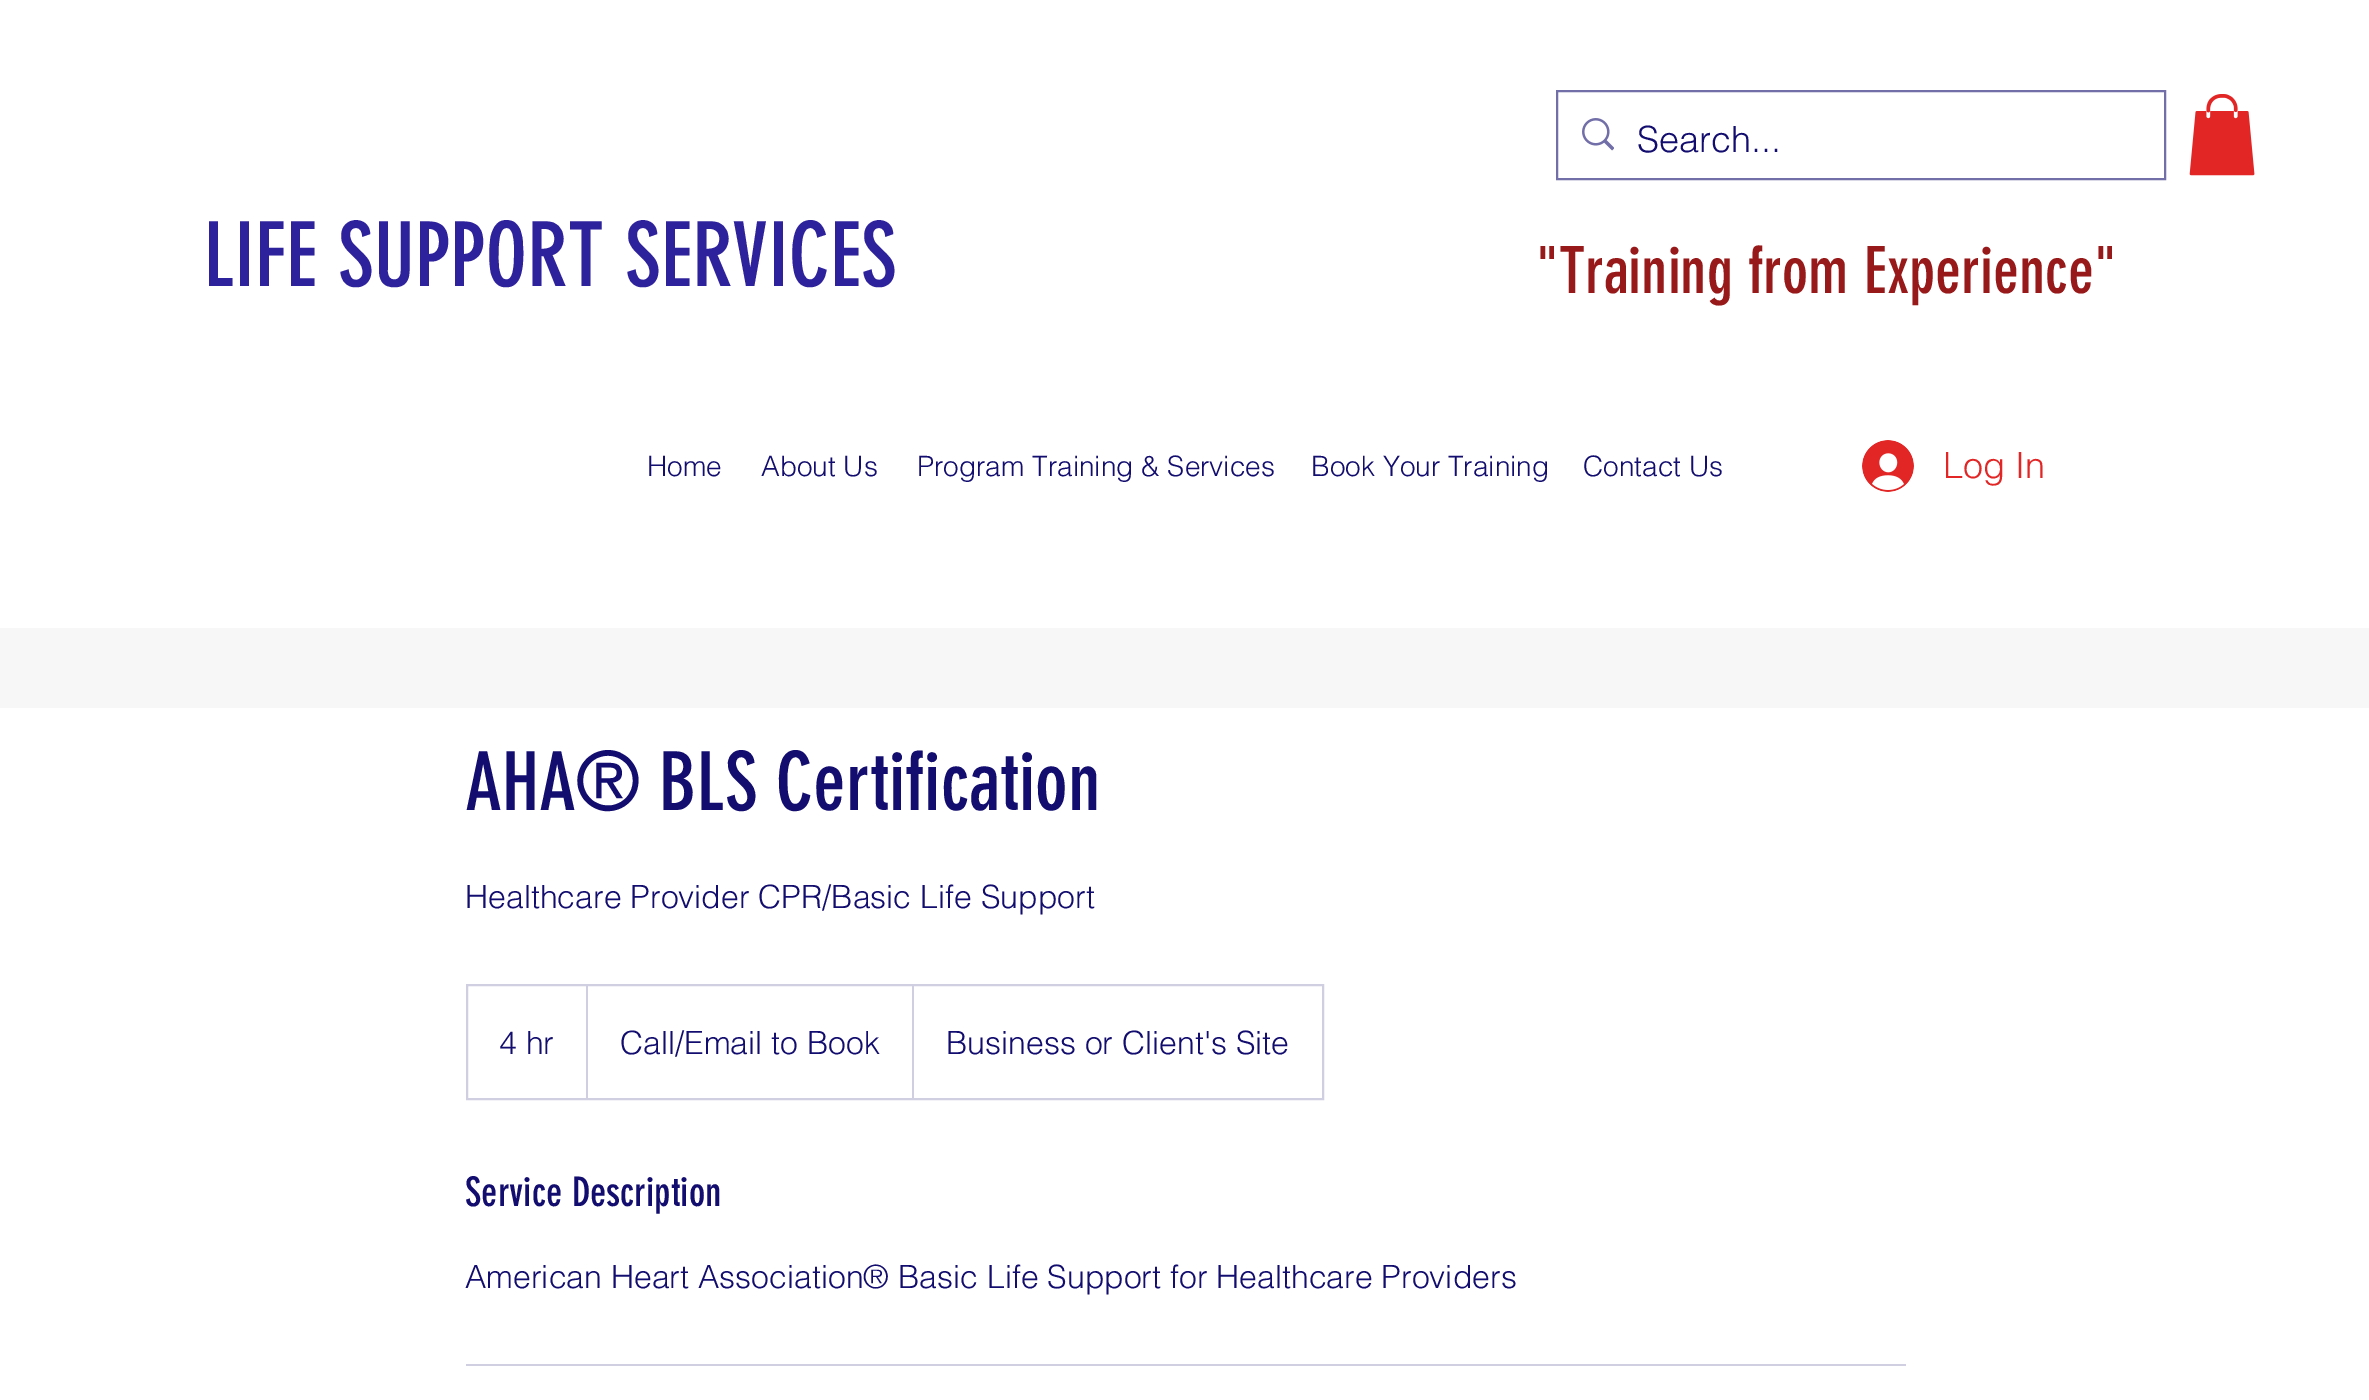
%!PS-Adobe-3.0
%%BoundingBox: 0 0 2369 1400
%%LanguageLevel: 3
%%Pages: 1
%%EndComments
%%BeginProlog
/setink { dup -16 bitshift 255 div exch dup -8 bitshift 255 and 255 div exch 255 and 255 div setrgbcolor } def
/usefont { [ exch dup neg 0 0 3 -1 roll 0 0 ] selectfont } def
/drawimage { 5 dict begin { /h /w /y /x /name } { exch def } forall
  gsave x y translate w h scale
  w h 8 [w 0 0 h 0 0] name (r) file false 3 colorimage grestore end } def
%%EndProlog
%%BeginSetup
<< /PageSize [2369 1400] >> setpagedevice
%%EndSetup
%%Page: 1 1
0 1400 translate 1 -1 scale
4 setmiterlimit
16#FFFFFF setink
0 0 2369 1400 rectfill
16#716EA8 setink
2 setlinewidth
1557 91 608 88 rectstroke
(img1.raw) 1582 118 32 33 drawimage
/helvetica-Light 36 usefont
16#120D6E setink
1637 152 moveto (Search...) show
/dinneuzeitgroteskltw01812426-Regular 88 usefont
16#2E229C setink
203 286 moveto (LIFE SUPPORT SERVICES) show
(img2.raw) 2189 94 66 82 drawimage
/dinneuzeitgroteskltw01812426-Regular 64 usefont
16#971919 setink
1536 293 moveto ("Training from Experience") show
/helvetica-Light 28 usefont
16#120D6E setink
[
    [(Home) 647 476]
    [(About Us) 761 476]
    [(Program Training & Services) 917 476]
    [(Book Your Training) 1311 476]
    [(Contact Us) 1583 476]
] { aload pop moveto show } forall
(img3.raw) 1862 440 52 52 drawimage
/helvetica-Light 36 usefont
16#E22626 setink
1943 478 moveto (Log In) show
16#F7F7F7 setink
0 628 2369 80 rectfill
/dinneuzeitgroteskltw01812426-Regular 80 usefont
16#120D6E setink
465 810 moveto (AHA® BLS Certification) show
/helvetica-Light 32 usefont
465 908 moveto (Healthcare Provider CPR/Basic Life Support) show
16#D0CFE2 setink
467 985 856 114 rectstroke
16#120D6E setink
499 1054 moveto (4 hr) show
gsave
468 986 854 112 rectclip
16#D0CFE2 setink
586 1098 moveto 586 984 lineto 588 986 lineto 588 1098 lineto closepath fill
grestore
620 1054 moveto (Call/Email to Book) show
gsave
468 986 854 112 rectclip
16#D0CFE2 setink
912 1098 moveto 912 984 lineto 914 986 lineto 914 1098 lineto closepath fill
grestore
946 1054 moveto (Business or Client's Site) show
/dinneuzeitgroteskltw01812426-Regular 40 usefont
465 1206 moveto (Service Description) show
/helvetica-Light 32 usefont
465 1288 moveto (American Heart Association® Basic Life Support for Healthcare Providers) show
16#D0CFE2 setink
466 1364 1440 2 rectfill
showpage
%%EOF
